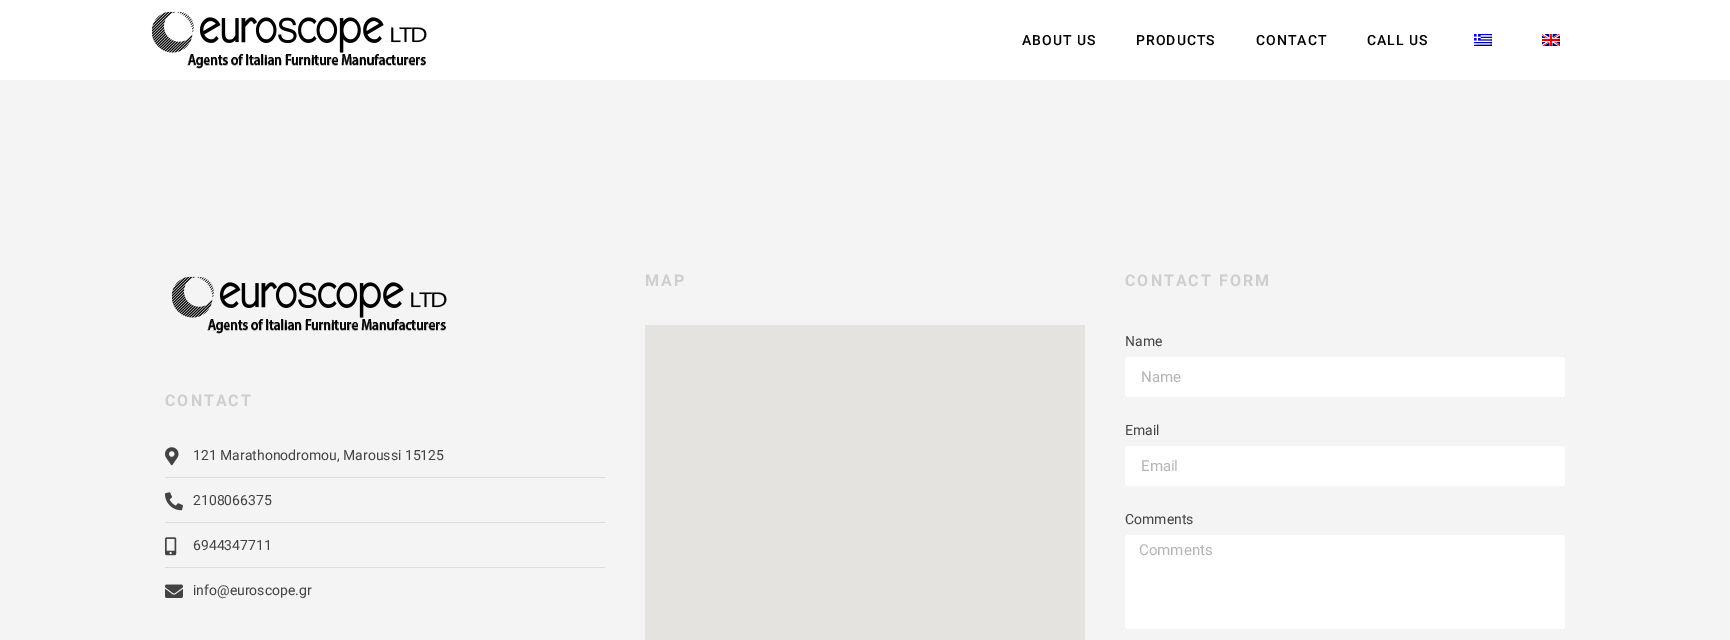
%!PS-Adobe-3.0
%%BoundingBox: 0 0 1730 640
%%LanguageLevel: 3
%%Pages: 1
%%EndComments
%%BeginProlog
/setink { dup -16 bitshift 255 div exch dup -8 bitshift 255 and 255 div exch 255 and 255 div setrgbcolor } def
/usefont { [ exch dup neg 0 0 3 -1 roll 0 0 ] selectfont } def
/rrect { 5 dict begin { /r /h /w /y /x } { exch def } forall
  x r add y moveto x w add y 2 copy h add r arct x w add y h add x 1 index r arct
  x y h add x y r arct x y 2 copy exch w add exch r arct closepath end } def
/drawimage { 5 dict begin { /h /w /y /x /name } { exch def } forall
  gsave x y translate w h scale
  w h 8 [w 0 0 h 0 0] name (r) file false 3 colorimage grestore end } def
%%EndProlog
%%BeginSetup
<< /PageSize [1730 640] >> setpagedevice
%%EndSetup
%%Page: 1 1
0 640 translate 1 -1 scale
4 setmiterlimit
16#FFFFFF setink
0 0 1730 640 rectfill
(img1.raw) 151 11 276 58 drawimage
/Roboto-Medium 14 usefont
16#000000 setink
1022 45 moveto 1 0 (ABOUT US) ashow
1136 45 moveto 1 0 (PRODUCTS) ashow
1256 45 moveto 1 0 (CONTACT) ashow
1367 45 moveto 1 0 (CALL US) ashow
(img2.raw) 1474 34 18 12 drawimage
(img3.raw) 1542 34 18 12 drawimage
16#F4F4F4 setink
0 80 1730 560 rectfill
(img4.raw) 171 276 276 58 drawimage
/Roboto-Bold 16 usefont
16#CECECE setink
165 406 moveto 2 0 (CONTACT) ashow
(img5.raw) 165 447 14 19 drawimage
/Roboto-Regular 14 usefont
16#434343 setink
193 460 moveto (121 Marathonodromou, Maroussi 15125) show
16#DDDDDD setink
165 477 440 1 rectfill
(img6.raw) 165 492 18 19 drawimage
16#434343 setink
193 505 moveto (2108066375) show
16#DDDDDD setink
165 522 440 1 rectfill
(img7.raw) 165 537 12 19 drawimage
16#434343 setink
193 550 moveto (6944347711) show
16#DDDDDD setink
165 567 440 1 rectfill
(img8.raw) 165 584 18 14 drawimage
16#434343 setink
193 595 moveto (info@euroscope.gr) show
/Roboto-Bold 16 usefont
16#CECECE setink
645 286 moveto 2 0 (MAP) ashow
16#E5E3DF setink
645 325 440 315 rectfill
16#CECECE setink
1125 286 moveto 2 0 (CONTACT FORM) ashow
/Roboto-Regular 14 usefont
16#434343 setink
1125 346 moveto (Name) show
16#FFFFFF setink
1125 357 440 40 3 rrect fill
/Roboto-Regular 15 usefont
16#B5B5B5 setink
1141 382 moveto (Name) show
/Roboto-Regular 14 usefont
16#434343 setink
1125 435 moveto (Email) show
16#FFFFFF setink
1125 446 440 40 3 rrect fill
/Roboto-Regular 15 usefont
16#B5B5B5 setink
1141 471 moveto (Email) show
/Roboto-Regular 14 usefont
16#434343 setink
1125 524 moveto (Comments) show
16#FFFFFF setink
1125 535 440 94 3 rrect fill
/Roboto-Regular 15 usefont
16#B5B5B5 setink
1139 555 moveto (Comments) show
showpage
%%EOF
